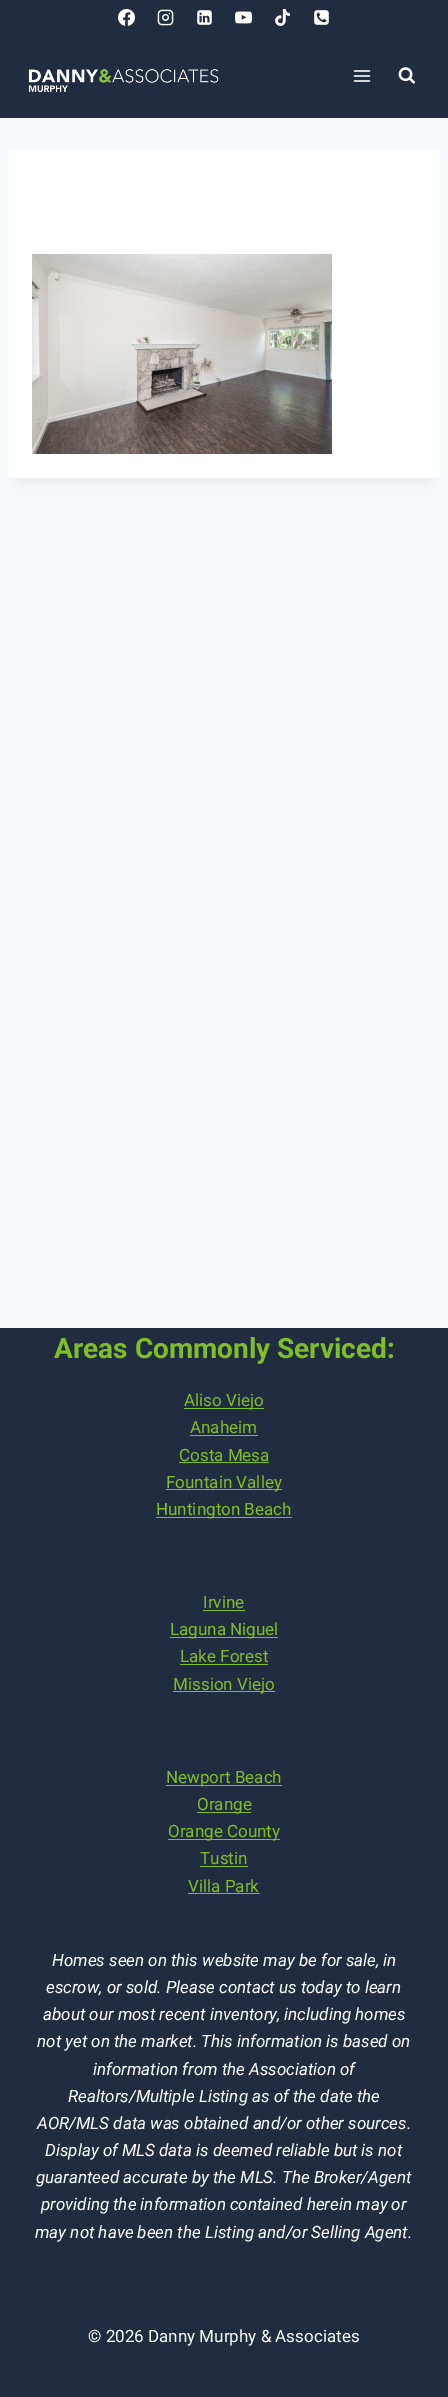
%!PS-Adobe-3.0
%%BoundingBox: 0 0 448 2397
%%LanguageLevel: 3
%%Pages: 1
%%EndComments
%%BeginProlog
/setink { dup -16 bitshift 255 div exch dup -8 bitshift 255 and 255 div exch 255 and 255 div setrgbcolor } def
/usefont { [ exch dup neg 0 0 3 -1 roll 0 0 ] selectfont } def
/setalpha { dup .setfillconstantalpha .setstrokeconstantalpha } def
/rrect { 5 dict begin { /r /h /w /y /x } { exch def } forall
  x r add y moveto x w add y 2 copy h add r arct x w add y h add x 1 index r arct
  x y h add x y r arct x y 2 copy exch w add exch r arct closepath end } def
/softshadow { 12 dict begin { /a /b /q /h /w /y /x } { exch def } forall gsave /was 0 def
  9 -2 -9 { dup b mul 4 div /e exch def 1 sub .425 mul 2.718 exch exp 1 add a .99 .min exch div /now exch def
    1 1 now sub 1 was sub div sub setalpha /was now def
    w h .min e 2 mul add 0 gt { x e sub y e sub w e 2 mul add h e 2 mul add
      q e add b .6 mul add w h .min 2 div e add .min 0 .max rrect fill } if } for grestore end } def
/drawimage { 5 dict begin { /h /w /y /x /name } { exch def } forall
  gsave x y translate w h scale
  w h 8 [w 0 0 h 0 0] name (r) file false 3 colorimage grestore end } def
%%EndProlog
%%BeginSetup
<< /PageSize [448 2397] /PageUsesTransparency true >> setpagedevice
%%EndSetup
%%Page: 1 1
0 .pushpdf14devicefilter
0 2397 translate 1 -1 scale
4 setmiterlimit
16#F7FAFC setink
0 0 448 2397 rectfill
16#202D40 setink
0 0 448 118 rectfill
(img1.raw) 118 9 17 17 drawimage
(img2.raw) 157 9 17 17 drawimage
(img3.raw) 197 10 15 15 drawimage
(img4.raw) 235 11 17 13 drawimage
(img5.raw) 275 9 15 17 drawimage
(img6.raw) 314 10 15 15 drawimage
(img7.raw) 28 69 191 24 drawimage
(img8.raw) 353 70 18 12 drawimage
(img9.raw) 398 67 17 17 drawimage
16#000000 setink
18 175 412 308 0 7.5 0.05 softshadow
16#FFFFFF setink
8 150 432 328 4 rrect fill
(img10.raw) 32 254 300 200 drawimage
16#202D40 setink
0 1328 448 1069 rectfill
/Roboto-Bold 28 usefont
16#80BD26 setink
54 1358 moveto (Areas Commonly Serviced:) show
184 1408 80 1 rectfill
/Roboto-Regular 17 usefont
184 1406 moveto (Aliso Viejo) show
190 1433 moveto (Anaheim) show
190 1435 68 1 rectfill
179 1461 moveto (Costa Mesa) show
179 1462 90 1 rectfill
166 1489 116 1 rectfill
166 1488 moveto (Fountain Valley) show
156 1517 136 1 rectfill
156 1515 moveto (Huntington Beach) show
203 1608 moveto (Irvine) show
203 1610 42 1 rectfill
170 1637 108 1 rectfill
170 1635 moveto (Laguna Niguel) show
180 1662 moveto (Lake Forest) show
180 1664 88 1 rectfill
173 1691 102 1 rectfill
173 1690 moveto (Mission Viejo) show
166 1785 116 1 rectfill
166 1783 moveto (Newport Beach) show
197 1812 54 1 rectfill
197 1810 moveto (Orange) show
168 1839 112 1 rectfill
168 1837 moveto (Orange County) show
200 1864 moveto (Tustin) show
200 1866 48 1 rectfill
188 1892 moveto (Villa Park) show
188 1893 72 1 rectfill
/Roboto-Italic 17 usefont
16#FFFFFF setink
[
    [(Homes seen on this website may be for sale, in) 52 1966]
    [(escrow, or sold. Please contact us today to learn) 46 1993]
    [(about our most recent inventory, including homes) 43 2020]
    [(not yet on the market. This information is based on) 37 2047]
    [(information from the Association of) 93 2075]
    [(Realtors/Multiple Listing as of the date the) 68 2102]
    [(AOR/MLS data was obtained and/or other sources.) 37 2129]
    [(Display of MLS data is deemed reliable but is not) 45 2156]
    [(guaranteed accurate by the MLS. The Broker/Agent) 36 2183]
    [(providing the information contained herein may or) 41 2210]
    [(may not have been the Listing and/or Selling Agent.) 35 2238]
] { aload pop moveto show } forall
/Roboto-Regular 17 usefont
88 2342 moveto (© 2026 Danny Murphy & Associates) show
.poppdf14devicefilter showpage
%%EOF
